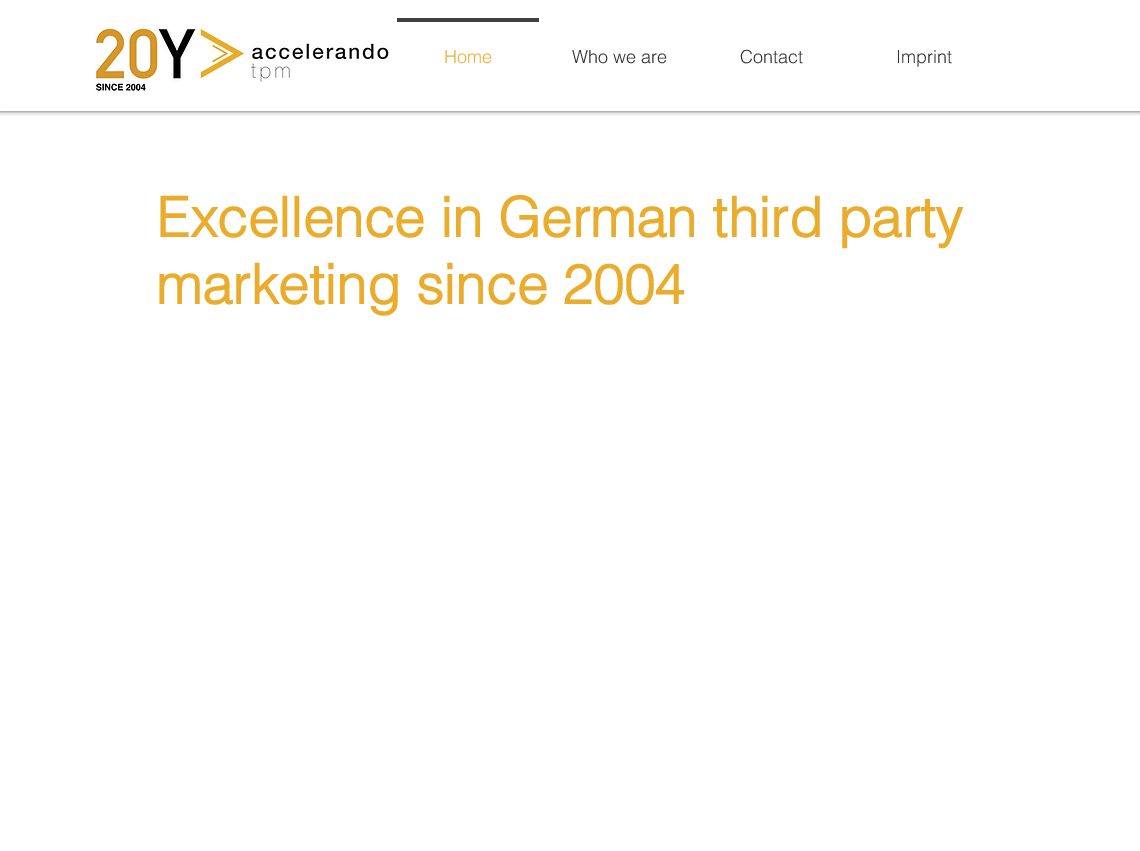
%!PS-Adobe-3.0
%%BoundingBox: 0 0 1140 851
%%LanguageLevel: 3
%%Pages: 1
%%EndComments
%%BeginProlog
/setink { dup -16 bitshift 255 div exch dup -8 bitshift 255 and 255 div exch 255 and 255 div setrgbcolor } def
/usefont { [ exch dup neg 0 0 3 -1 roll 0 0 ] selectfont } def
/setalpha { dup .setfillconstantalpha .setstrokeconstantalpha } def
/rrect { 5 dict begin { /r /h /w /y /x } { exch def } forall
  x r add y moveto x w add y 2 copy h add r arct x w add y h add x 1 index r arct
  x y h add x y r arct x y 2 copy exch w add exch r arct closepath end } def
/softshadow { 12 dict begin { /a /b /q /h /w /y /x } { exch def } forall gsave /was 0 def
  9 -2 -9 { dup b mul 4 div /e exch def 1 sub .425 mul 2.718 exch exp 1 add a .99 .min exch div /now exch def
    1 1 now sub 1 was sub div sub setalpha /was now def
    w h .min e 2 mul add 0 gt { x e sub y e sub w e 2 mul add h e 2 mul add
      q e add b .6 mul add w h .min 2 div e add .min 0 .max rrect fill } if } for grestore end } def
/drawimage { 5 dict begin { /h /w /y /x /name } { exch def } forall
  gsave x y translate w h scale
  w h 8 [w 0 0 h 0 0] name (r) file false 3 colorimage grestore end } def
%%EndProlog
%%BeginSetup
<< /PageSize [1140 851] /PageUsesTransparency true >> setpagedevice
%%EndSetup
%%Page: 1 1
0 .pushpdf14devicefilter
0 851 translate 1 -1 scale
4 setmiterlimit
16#FFFFFF setink
0 0 1140 851 rectfill
gsave
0 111 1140 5 rectclip
16#000000 setink
0 0 1140 111 0 2.5 0.7 softshadow
grestore
(img1.raw) 94 28 295 65 drawimage
16#404040 setink
397 18 142 4 rectfill
/helvetica-Light 18 usefont
16#E9AC2C setink
444 63 moveto (Home) show
16#2F2E2E setink
[
    [(Who we are) 572 63]
    [(Contact) 740 63]
    [(Imprint) 896 63]
] { aload pop moveto show } forall
/helvetica-Bold 55 usefont
16#E9AC2C setink
156 237 moveto (Excellence in German third party) show
156 304 moveto (marketing since 2004) show
.poppdf14devicefilter showpage
%%EOF
